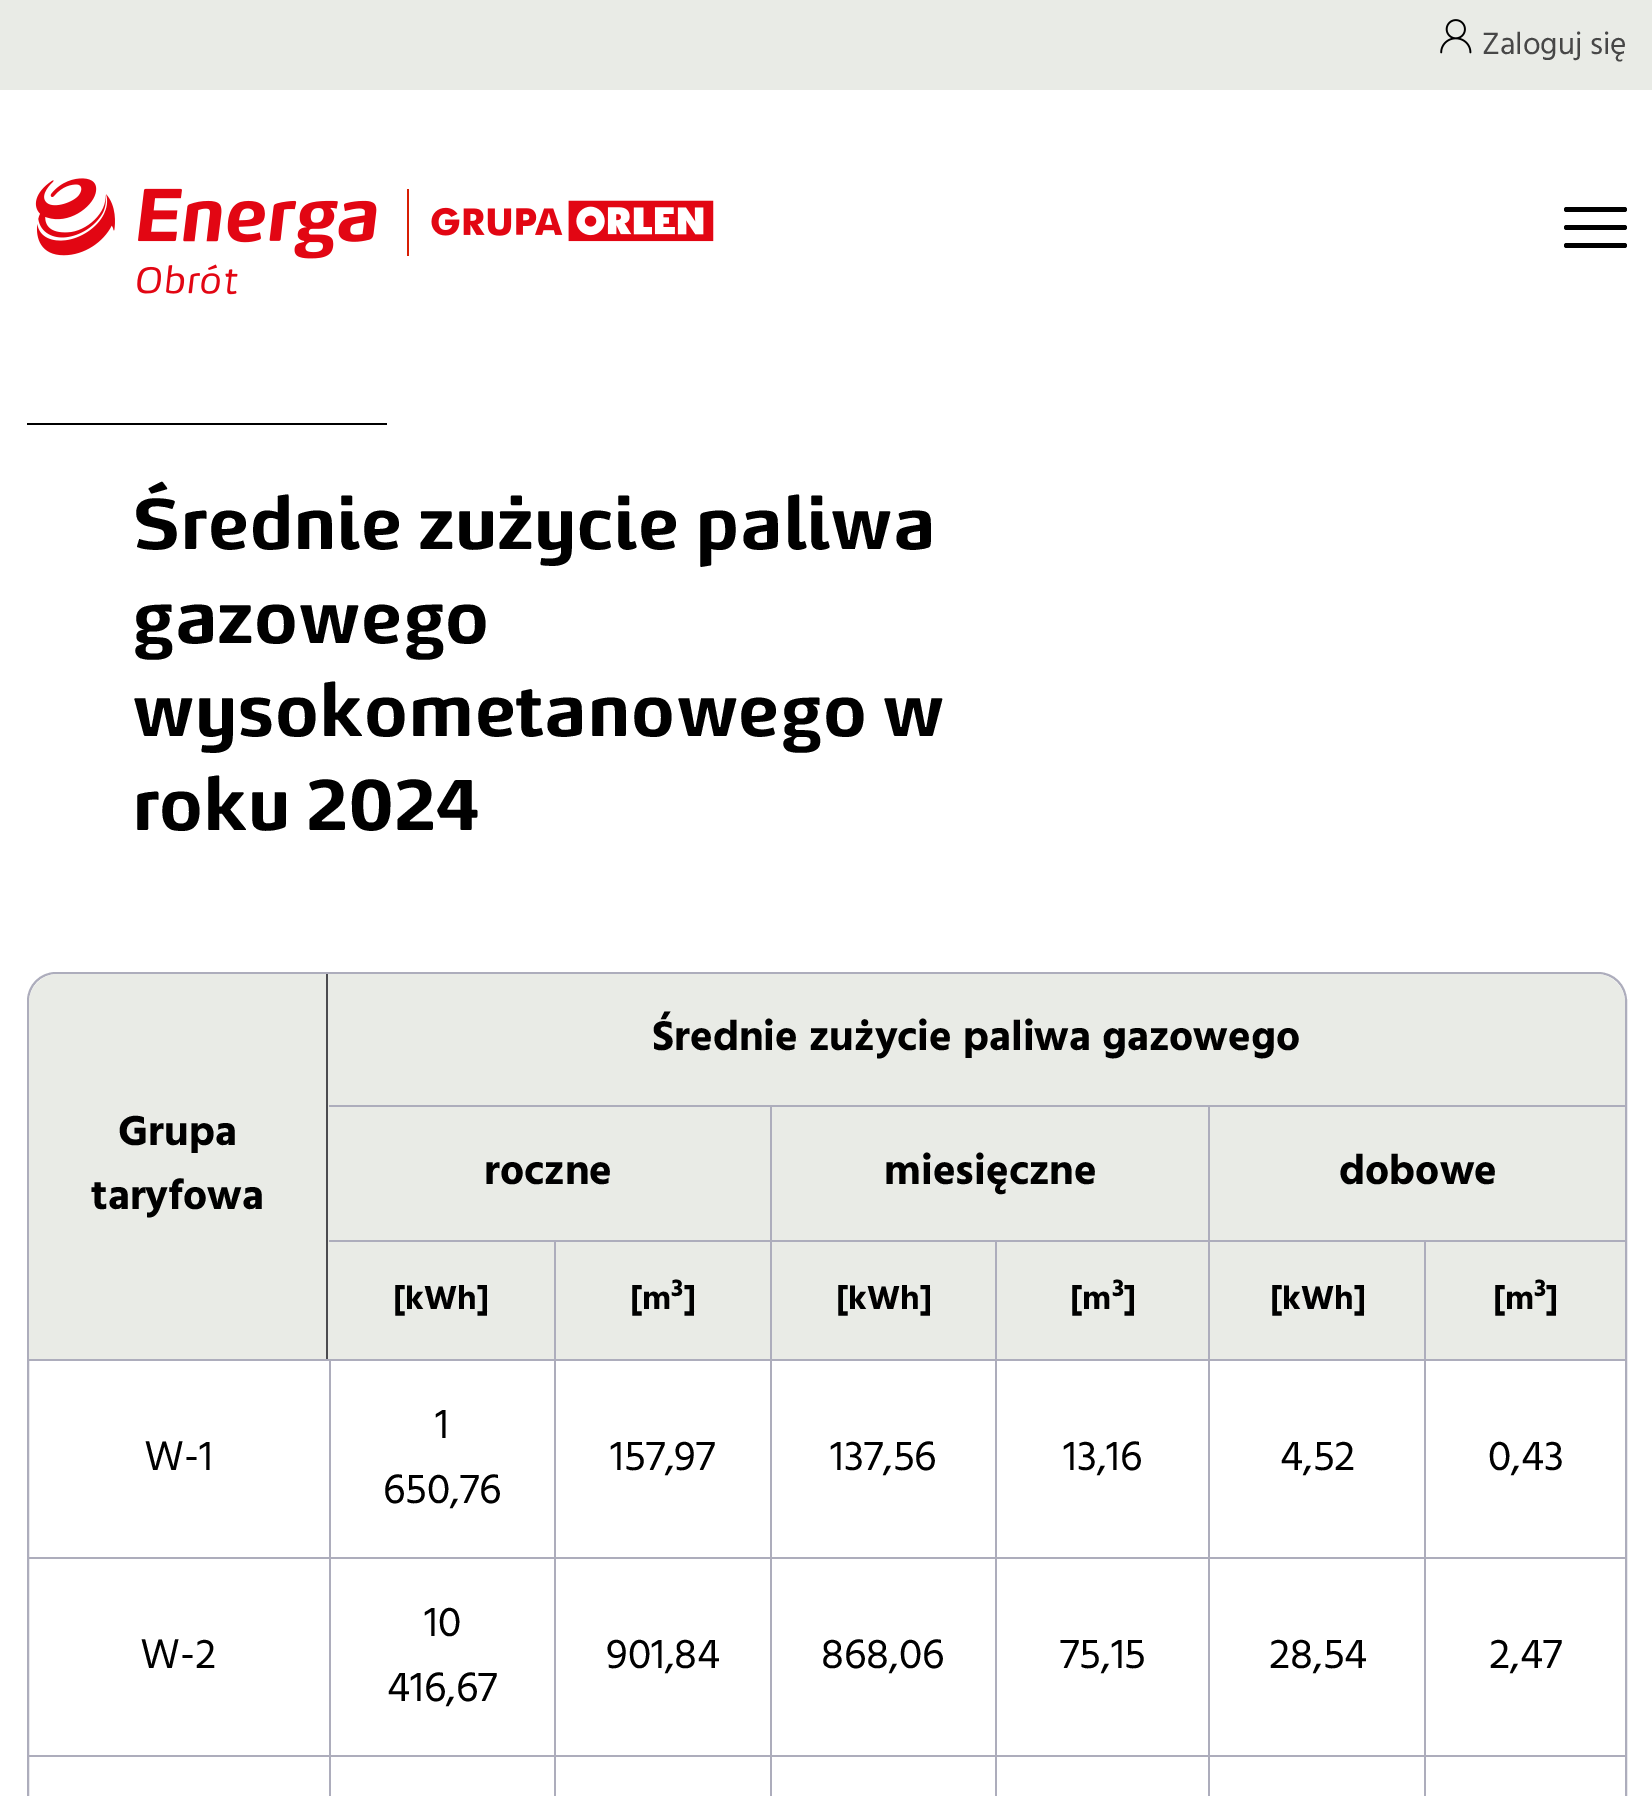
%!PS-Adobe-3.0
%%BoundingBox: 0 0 1652 1796
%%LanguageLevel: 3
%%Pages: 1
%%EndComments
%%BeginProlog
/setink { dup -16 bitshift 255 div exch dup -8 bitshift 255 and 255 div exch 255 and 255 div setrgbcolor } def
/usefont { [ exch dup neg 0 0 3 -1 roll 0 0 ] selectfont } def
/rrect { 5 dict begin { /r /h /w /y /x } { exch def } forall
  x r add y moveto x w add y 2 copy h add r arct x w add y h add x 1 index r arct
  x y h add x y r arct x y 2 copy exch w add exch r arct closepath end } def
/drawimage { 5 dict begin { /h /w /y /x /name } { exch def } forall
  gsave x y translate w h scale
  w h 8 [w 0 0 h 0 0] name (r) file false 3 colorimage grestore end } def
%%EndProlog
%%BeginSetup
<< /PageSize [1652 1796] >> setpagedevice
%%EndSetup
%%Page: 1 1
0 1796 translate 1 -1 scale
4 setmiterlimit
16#FFFFFF setink
0 0 1652 1796 rectfill
16#E9EBE6 setink
0 0 1652 90 rectfill
(img1.raw) 1440 19 32 35 drawimage
/HindMadurai-Regular 31.5 usefont
16#474747 setink
1482 54 moveto (Zaloguj się) show
(img2.raw) 35 178 679 117 drawimage
16#000000 setink
1564 207 63 5 2.5 rrect fill
1564 225 63 5 2.5 rrect fill
1564 243 63 5 2.5 rrect fill
27 423 360 2 rectfill
/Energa-Bold 72 usefont
132 549 moveto -0.7 0 (Średnie zużycie paliwa) ashow
132 643 moveto -0.7 0 (gazowego) ashow
132 736 moveto -0.7 0 (wysokometanowego w) ashow
132 830 moveto -0.7 0 (roku 2024) ashow
16#ADADBC setink
2 setlinewidth
28 973 1598 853 28 rrect stroke
gsave
29 974 1596 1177 27 rrect clip newpath
16#E9EBE6 setink
329 974 moveto 1596 974 lineto 1612 974 1625 987 1625 1003 curveto 1625 1105 lineto 329 1105 lineto closepath fill
grestore
/HindMadurai-Bold 42.75 usefont
16#000000 setink
652 1050 moveto (Średnie zużycie paliwa gazowego) show
gsave
29 974 1596 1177 27 rrect clip newpath
16#E9EBE6 setink
58 974 moveto 329 974 lineto 329 1359 lineto 29 1359 lineto 29 1003 lineto 29 987 42 974 58 974 curveto closepath fill
grestore
16#4B4B4F setink
326 974 2 385 rectfill
16#000000 setink
118 1145 moveto (Grupa) show
91 1209 moveto (taryfowa) show
16#E9EBE6 setink
329 1107 441 133 rectfill
16#ADADBC setink
329 1105 1296 2 rectfill
16#000000 setink
484 1184 moveto (roczne) show
16#E9EBE6 setink
772 1107 436 133 rectfill
16#ADADBC setink
770 1105 2 135 rectfill
16#000000 setink
884 1184 moveto (miesięczne) show
16#E9EBE6 setink
1210 1107 415 133 rectfill
16#ADADBC setink
1208 1105 2 135 rectfill
16#000000 setink
1339 1184 moveto (dobowe) show
16#E9EBE6 setink
329 1242 225 117 rectfill
16#ADADBC setink
329 1240 1296 2 rectfill
/HindMadurai-Bold 34 usefont
16#000000 setink
393 1309 moveto ([kWh]) show
16#E9EBE6 setink
556 1242 214 117 rectfill
16#ADADBC setink
554 1240 2 119 rectfill
16#000000 setink
630 1309 moveto ([m) show
/HindMadurai-Bold 25 usefont
671 1296 moveto (3) show
/HindMadurai-Bold 34 usefont
684 1309 moveto (]) show
16#E9EBE6 setink
772 1242 223 117 rectfill
16#ADADBC setink
770 1240 2 119 rectfill
16#000000 setink
836 1309 moveto ([kWh]) show
16#E9EBE6 setink
997 1242 211 117 rectfill
16#ADADBC setink
995 1240 2 119 rectfill
16#000000 setink
1070 1309 moveto ([m) show
/HindMadurai-Bold 25 usefont
1112 1296 moveto (3) show
/HindMadurai-Bold 34 usefont
1124 1309 moveto (]) show
16#E9EBE6 setink
1210 1242 214 117 rectfill
16#ADADBC setink
1208 1240 2 119 rectfill
16#000000 setink
1270 1309 moveto ([kWh]) show
16#E9EBE6 setink
1426 1242 199 117 rectfill
16#ADADBC setink
1424 1240 2 119 rectfill
16#000000 setink
1493 1309 moveto ([m) show
/HindMadurai-Bold 25 usefont
1534 1296 moveto (3) show
/HindMadurai-Bold 34 usefont
1546 1309 moveto (]) show
16#ADADBC setink
29 1359 1596 2 rectfill
/HindMadurai-Regular 42.75 usefont
16#000000 setink
144 1470 moveto (W-1) show
16#ADADBC setink
329 1359 2 198 rectfill
16#000000 setink
435 1438 moveto (1) show
383 1503 moveto (650,76) show
16#ADADBC setink
554 1359 2 198 rectfill
16#000000 setink
610 1470 moveto (157,97) show
16#ADADBC setink
770 1359 2 198 rectfill
16#000000 setink
830 1470 moveto (137,56) show
16#ADADBC setink
995 1359 2 198 rectfill
16#000000 setink
1063 1470 moveto (13,16) show
16#ADADBC setink
1208 1359 2 198 rectfill
16#000000 setink
1280 1470 moveto (4,52) show
16#ADADBC setink
1424 1359 2 198 rectfill
16#000000 setink
1488 1470 moveto (0,43) show
16#ADADBC setink
29 1557 1596 2 rectfill
16#000000 setink
140 1668 moveto (W-2) show
16#ADADBC setink
329 1557 2 198 rectfill
16#000000 setink
424 1636 moveto (10) show
387 1701 moveto (416,67) show
16#ADADBC setink
554 1557 2 198 rectfill
16#000000 setink
606 1668 moveto (901,84) show
16#ADADBC setink
770 1557 2 198 rectfill
16#000000 setink
821 1668 moveto (868,06) show
16#ADADBC setink
995 1557 2 198 rectfill
16#000000 setink
1060 1668 moveto (75,15) show
16#ADADBC setink
1208 1557 2 198 rectfill
16#000000 setink
1269 1668 moveto (28,54) show
16#ADADBC setink
1424 1557 2 198 rectfill
16#000000 setink
1489 1668 moveto (2,47) show
[
    [29 1755 1596 2 16#ADADBC]
    [329 1755 2 41 16#ADADBC]
    [554 1755 2 41 16#ADADBC]
    [770 1755 2 41 16#ADADBC]
    [995 1755 2 41 16#ADADBC]
    [1208 1755 2 41 16#ADADBC]
    [1424 1755 2 41 16#ADADBC]
] { aload pop setink rectfill } forall
showpage
%%EOF
